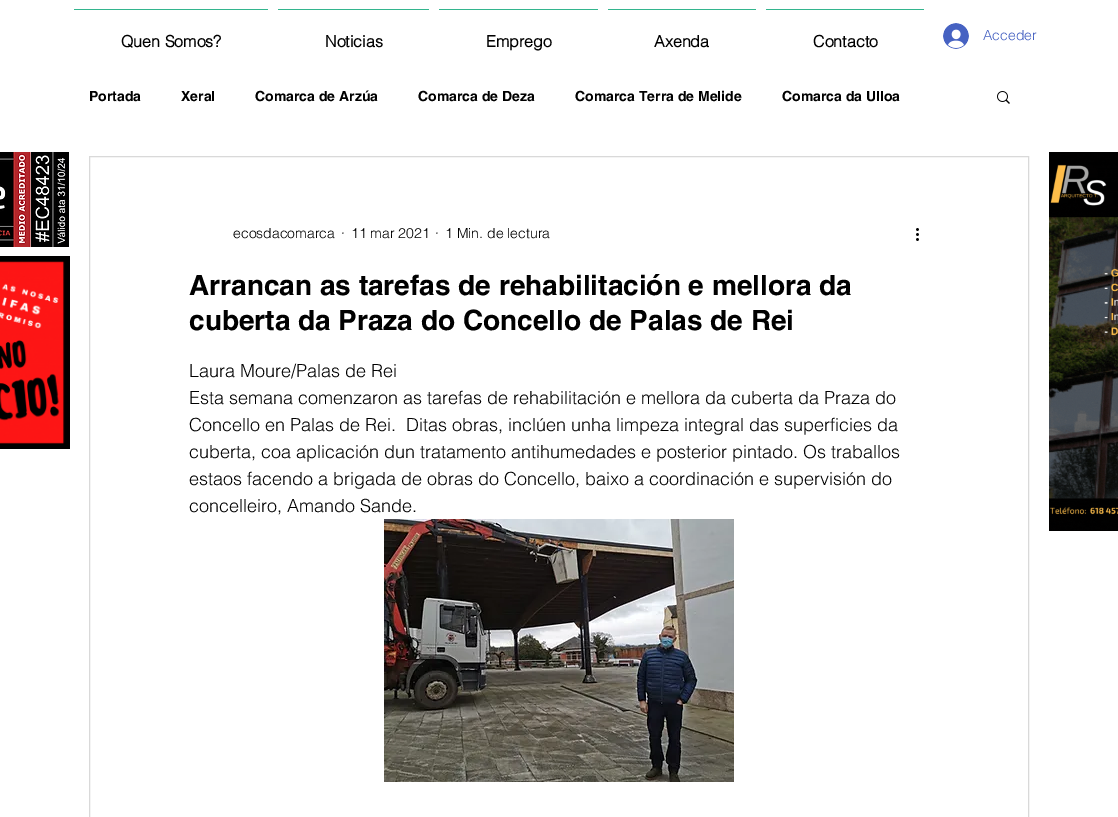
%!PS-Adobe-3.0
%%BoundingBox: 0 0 1118 817
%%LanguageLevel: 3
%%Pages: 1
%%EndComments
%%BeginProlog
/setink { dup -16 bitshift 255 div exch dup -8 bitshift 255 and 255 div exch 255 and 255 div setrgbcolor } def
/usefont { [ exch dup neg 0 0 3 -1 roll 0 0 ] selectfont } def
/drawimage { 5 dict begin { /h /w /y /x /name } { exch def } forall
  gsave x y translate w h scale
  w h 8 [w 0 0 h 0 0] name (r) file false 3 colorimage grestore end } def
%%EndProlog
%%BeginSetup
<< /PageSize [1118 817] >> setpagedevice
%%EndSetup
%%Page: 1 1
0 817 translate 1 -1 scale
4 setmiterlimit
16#FFFFFF setink
0 0 1118 817 rectfill
16#33B58E setink
74 9 194 1 rectfill
/helvetica-Bold 16 usefont
16#000000 setink
121 47 moveto (Quen Somos?) show
16#33B58E setink
278 9 151 1 rectfill
16#000000 setink
325 47 moveto (Noticias) show
16#33B58E setink
439 9 159 1 rectfill
16#000000 setink
486 47 moveto (Emprego) show
16#33B58E setink
608 9 148 1 rectfill
16#000000 setink
654 47 moveto (Axenda) show
16#33B58E setink
766 9 158 1 rectfill
16#000000 setink
813 47 moveto (Contacto) show
(img1.raw) 943 23 26 26 drawimage
/helvetica-Light 14 usefont
16#4662C2 setink
983 40 moveto (Acceder) show
(img2.raw) 0 152 69 95 drawimage
/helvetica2-Bold 14 usefont
16#000000 setink
[
    [(Portada) 89 101]
    [(Xeral) 181 101]
    [(Comarca de Arzúa) 255 101]
    [(Comarca de Deza) 418 101]
    [(Comarca Terra de Melide) 575 101]
    [(Comarca da Ulloa) 782 101]
] { aload pop moveto show } forall
(img3.raw) 997 91 13 13 drawimage
16#D9D9D9 setink
89.5 156.5 939 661 rectstroke
/helvetica-Light 14 usefont
16#000000 setink
[
    [(ecosdacomarca) 233 238]
    [(·) 341 238]
    [(11 mar 2021) 351 238]
    [(·) 435 238]
    [(1 Min. de lectura) 445 238]
] { aload pop moveto show } forall
(img4.raw) 916 228 3 13 drawimage
/helvetica2-Bold 28 usefont
189 295 moveto (Arrancan as tarefas de rehabilitación e mellora da) show
189 330 moveto (cuberta da Praza do Concello de Palas de Rei) show
/helvetica-Light 18 usefont
[
    [(Laura Moure/Palas de Rei) 189 377]
    [(Esta semana comenzaron as tarefas de rehabilitación e mellora da cuberta da Praza do) 189 404]
    [(Concello en Palas de Rei.  Ditas obras, inclúen unha limpeza integral das superficies da) 189 431]
    [(cuberta, coa aplicación dun tratamento antihumedades e posterior pintado. Os traballos) 189 458]
    [(estaos facendo a brigada de obras do Concello, baixo a coordinación e supervisión do) 189 485]
    [(concelleiro, Amando Sande.) 189 512]
] { aload pop moveto show } forall
(img5.raw) 384 519 350 263 drawimage
(img6.raw) 1049 152 69 379 drawimage
(img7.raw) 0 256 70 193 drawimage
showpage
%%EOF
